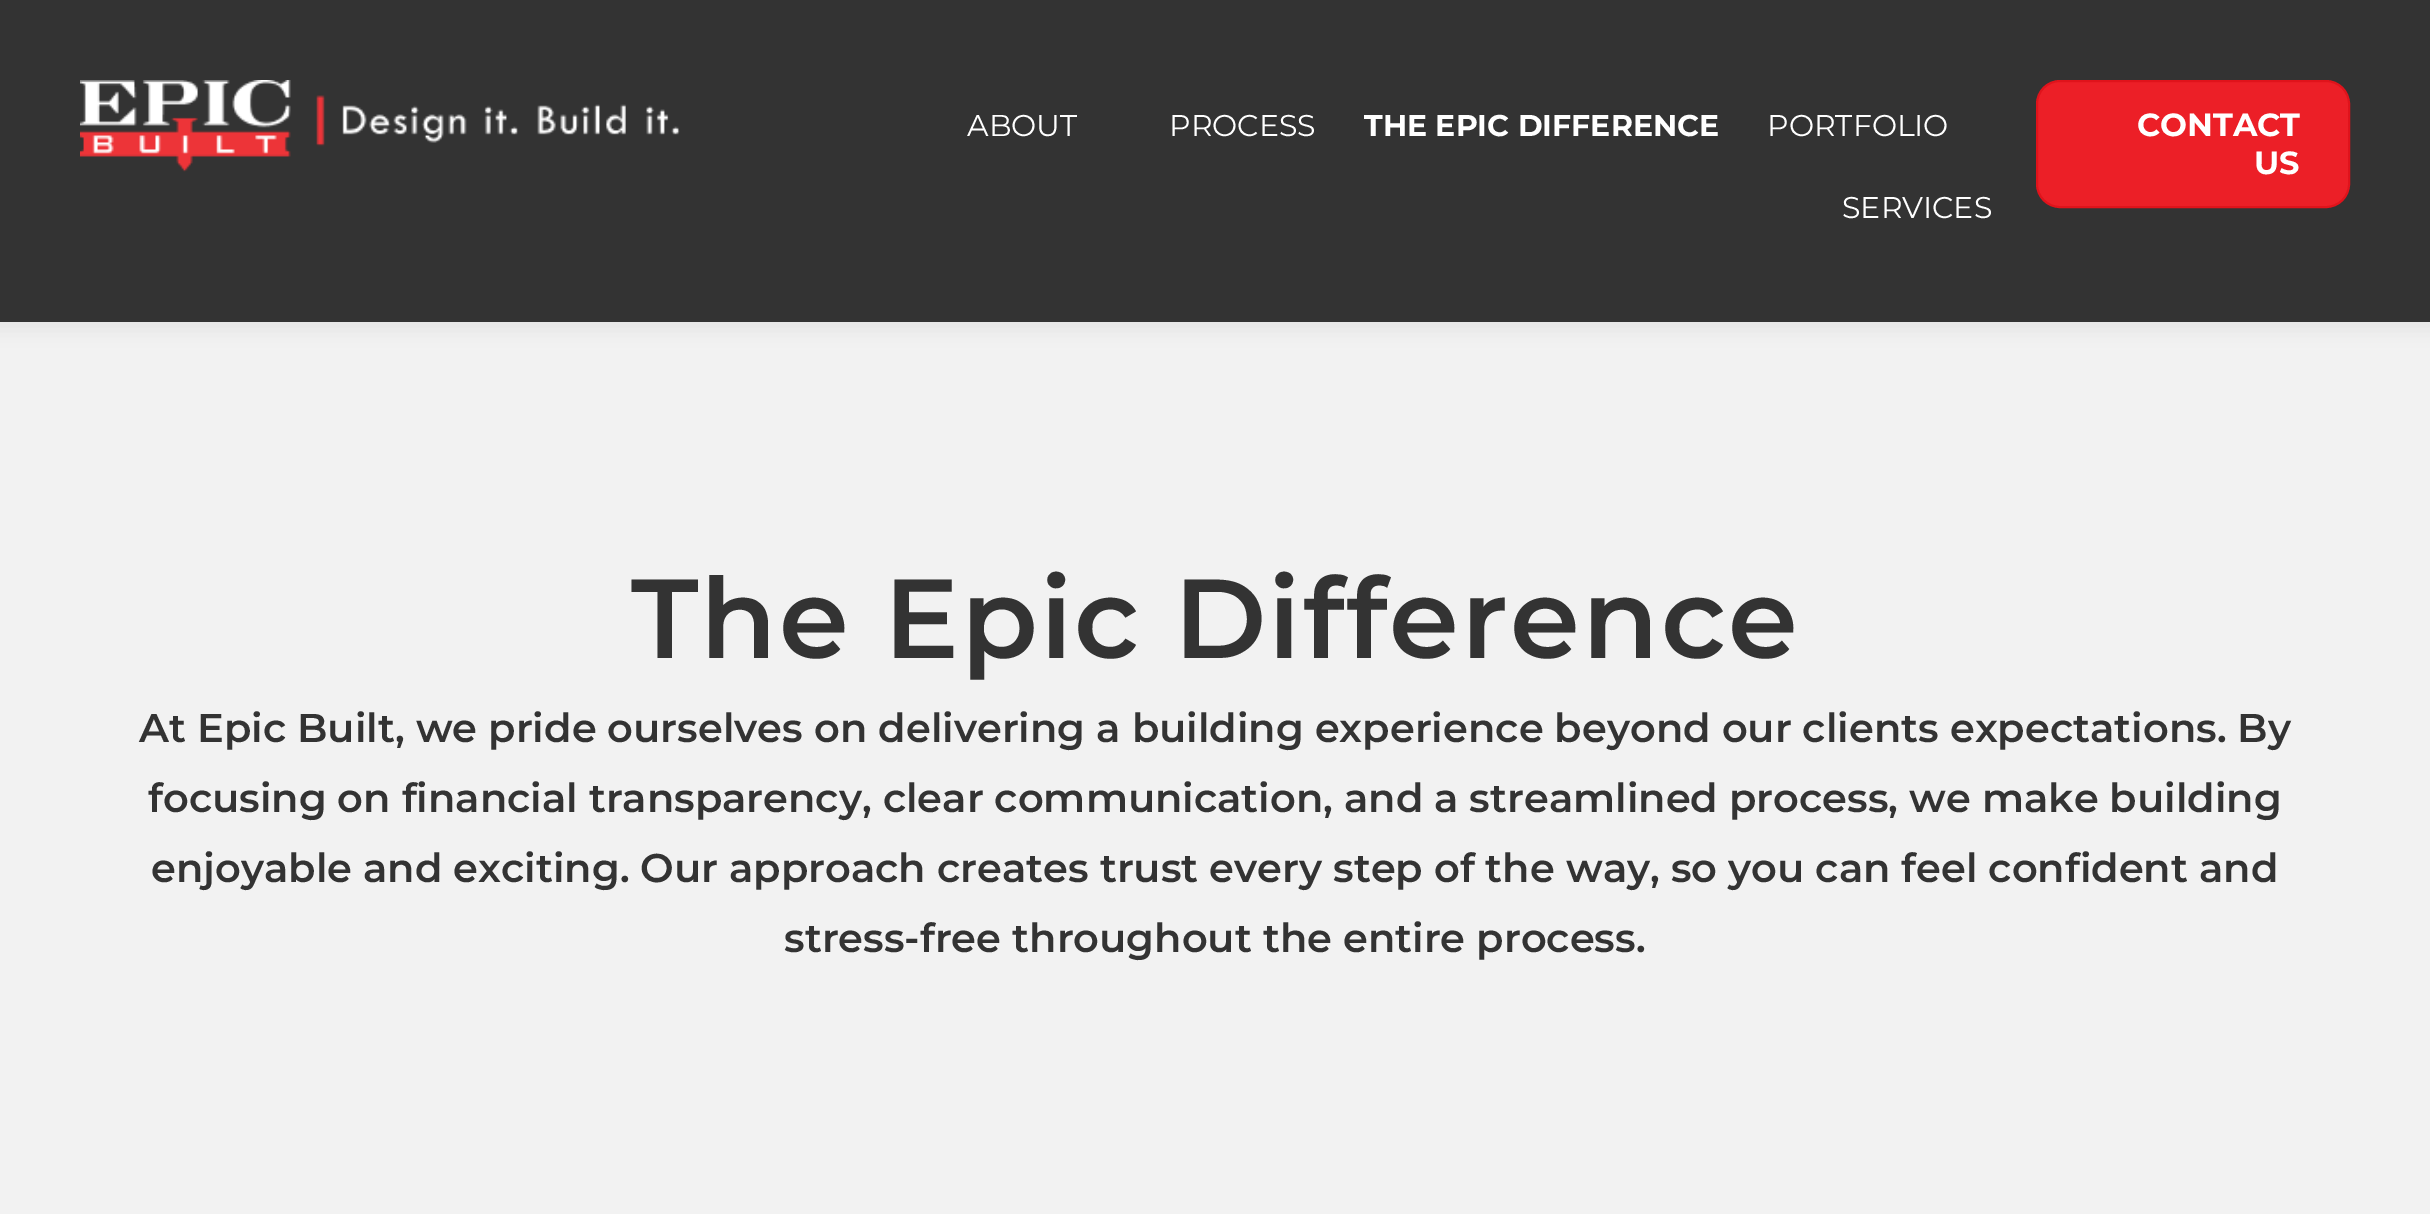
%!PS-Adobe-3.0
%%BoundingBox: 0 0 2430 1222
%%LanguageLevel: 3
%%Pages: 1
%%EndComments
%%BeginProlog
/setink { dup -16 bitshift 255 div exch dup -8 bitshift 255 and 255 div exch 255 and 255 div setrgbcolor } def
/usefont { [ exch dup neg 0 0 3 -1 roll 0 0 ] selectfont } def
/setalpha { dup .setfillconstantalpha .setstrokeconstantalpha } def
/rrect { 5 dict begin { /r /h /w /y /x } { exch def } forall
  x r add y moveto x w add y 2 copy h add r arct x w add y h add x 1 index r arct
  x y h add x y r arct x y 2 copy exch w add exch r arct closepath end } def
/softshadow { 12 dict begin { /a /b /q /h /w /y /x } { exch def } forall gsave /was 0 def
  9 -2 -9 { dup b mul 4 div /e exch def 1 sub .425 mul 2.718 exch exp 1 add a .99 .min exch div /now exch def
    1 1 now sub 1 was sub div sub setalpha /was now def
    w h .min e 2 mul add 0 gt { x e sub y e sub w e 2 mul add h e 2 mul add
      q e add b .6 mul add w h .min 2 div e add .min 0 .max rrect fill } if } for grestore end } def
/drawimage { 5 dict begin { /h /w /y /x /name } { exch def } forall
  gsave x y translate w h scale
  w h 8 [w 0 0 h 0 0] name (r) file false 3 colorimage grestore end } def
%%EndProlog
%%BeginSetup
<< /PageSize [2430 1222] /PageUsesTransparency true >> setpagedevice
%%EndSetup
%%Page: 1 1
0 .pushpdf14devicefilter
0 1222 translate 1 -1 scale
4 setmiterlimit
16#F2F2F2 setink
0 0 2430 1222 rectfill
16#000000 setink
-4 0 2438 330 0 10 0.05 softshadow
16#333333 setink
0 0 2430 322 rectfill
(img1.raw) 80 80 600 92 drawimage
/Montserrat-Regular 30 usefont
16#FFFFFF setink
967 136 moveto (ABOUT) show
1169 136 moveto (PROCESS) show
/Montserrat-Bold 30 usefont
1364 136 moveto (THE EPIC DIFFERENCE) show
/Montserrat-Regular 30 usefont
1767 136 moveto (PORTFOLIO) show
1842 218 moveto (SERVICES) show
16#EC1F27 setink
2037 81 312 126 23 rrect gsave fill grestore
16#E0131B setink
2 setlinewidth
stroke
/Montserrat-Bold 32 usefont
16#FFFFFF setink
2137 136 moveto (CONTACT) show
2254 174 moveto (US) show
/Montserrat-SemiBold 112 usefont
16#333333 setink
631 658 moveto 2 0 (The Epic Difference) ashow
/Montserrat-SemiBold 40 usefont
[
    [(At Epic Built, we pride ourselves on delivering a building experience beyond our clients expectations. By) 139 742]
    [(focusing on financial transparency, clear communication, and a streamlined process, we make building) 148 812]
    [(enjoyable and exciting. Our approach creates trust every step of the way, so you can feel confident and) 151 882]
    [(stress-free throughout the entire process.) 784 952]
] { aload pop moveto show } forall
16#FFFFFF setink
0 1214 2430 8 rectfill
.poppdf14devicefilter showpage
%%EOF
